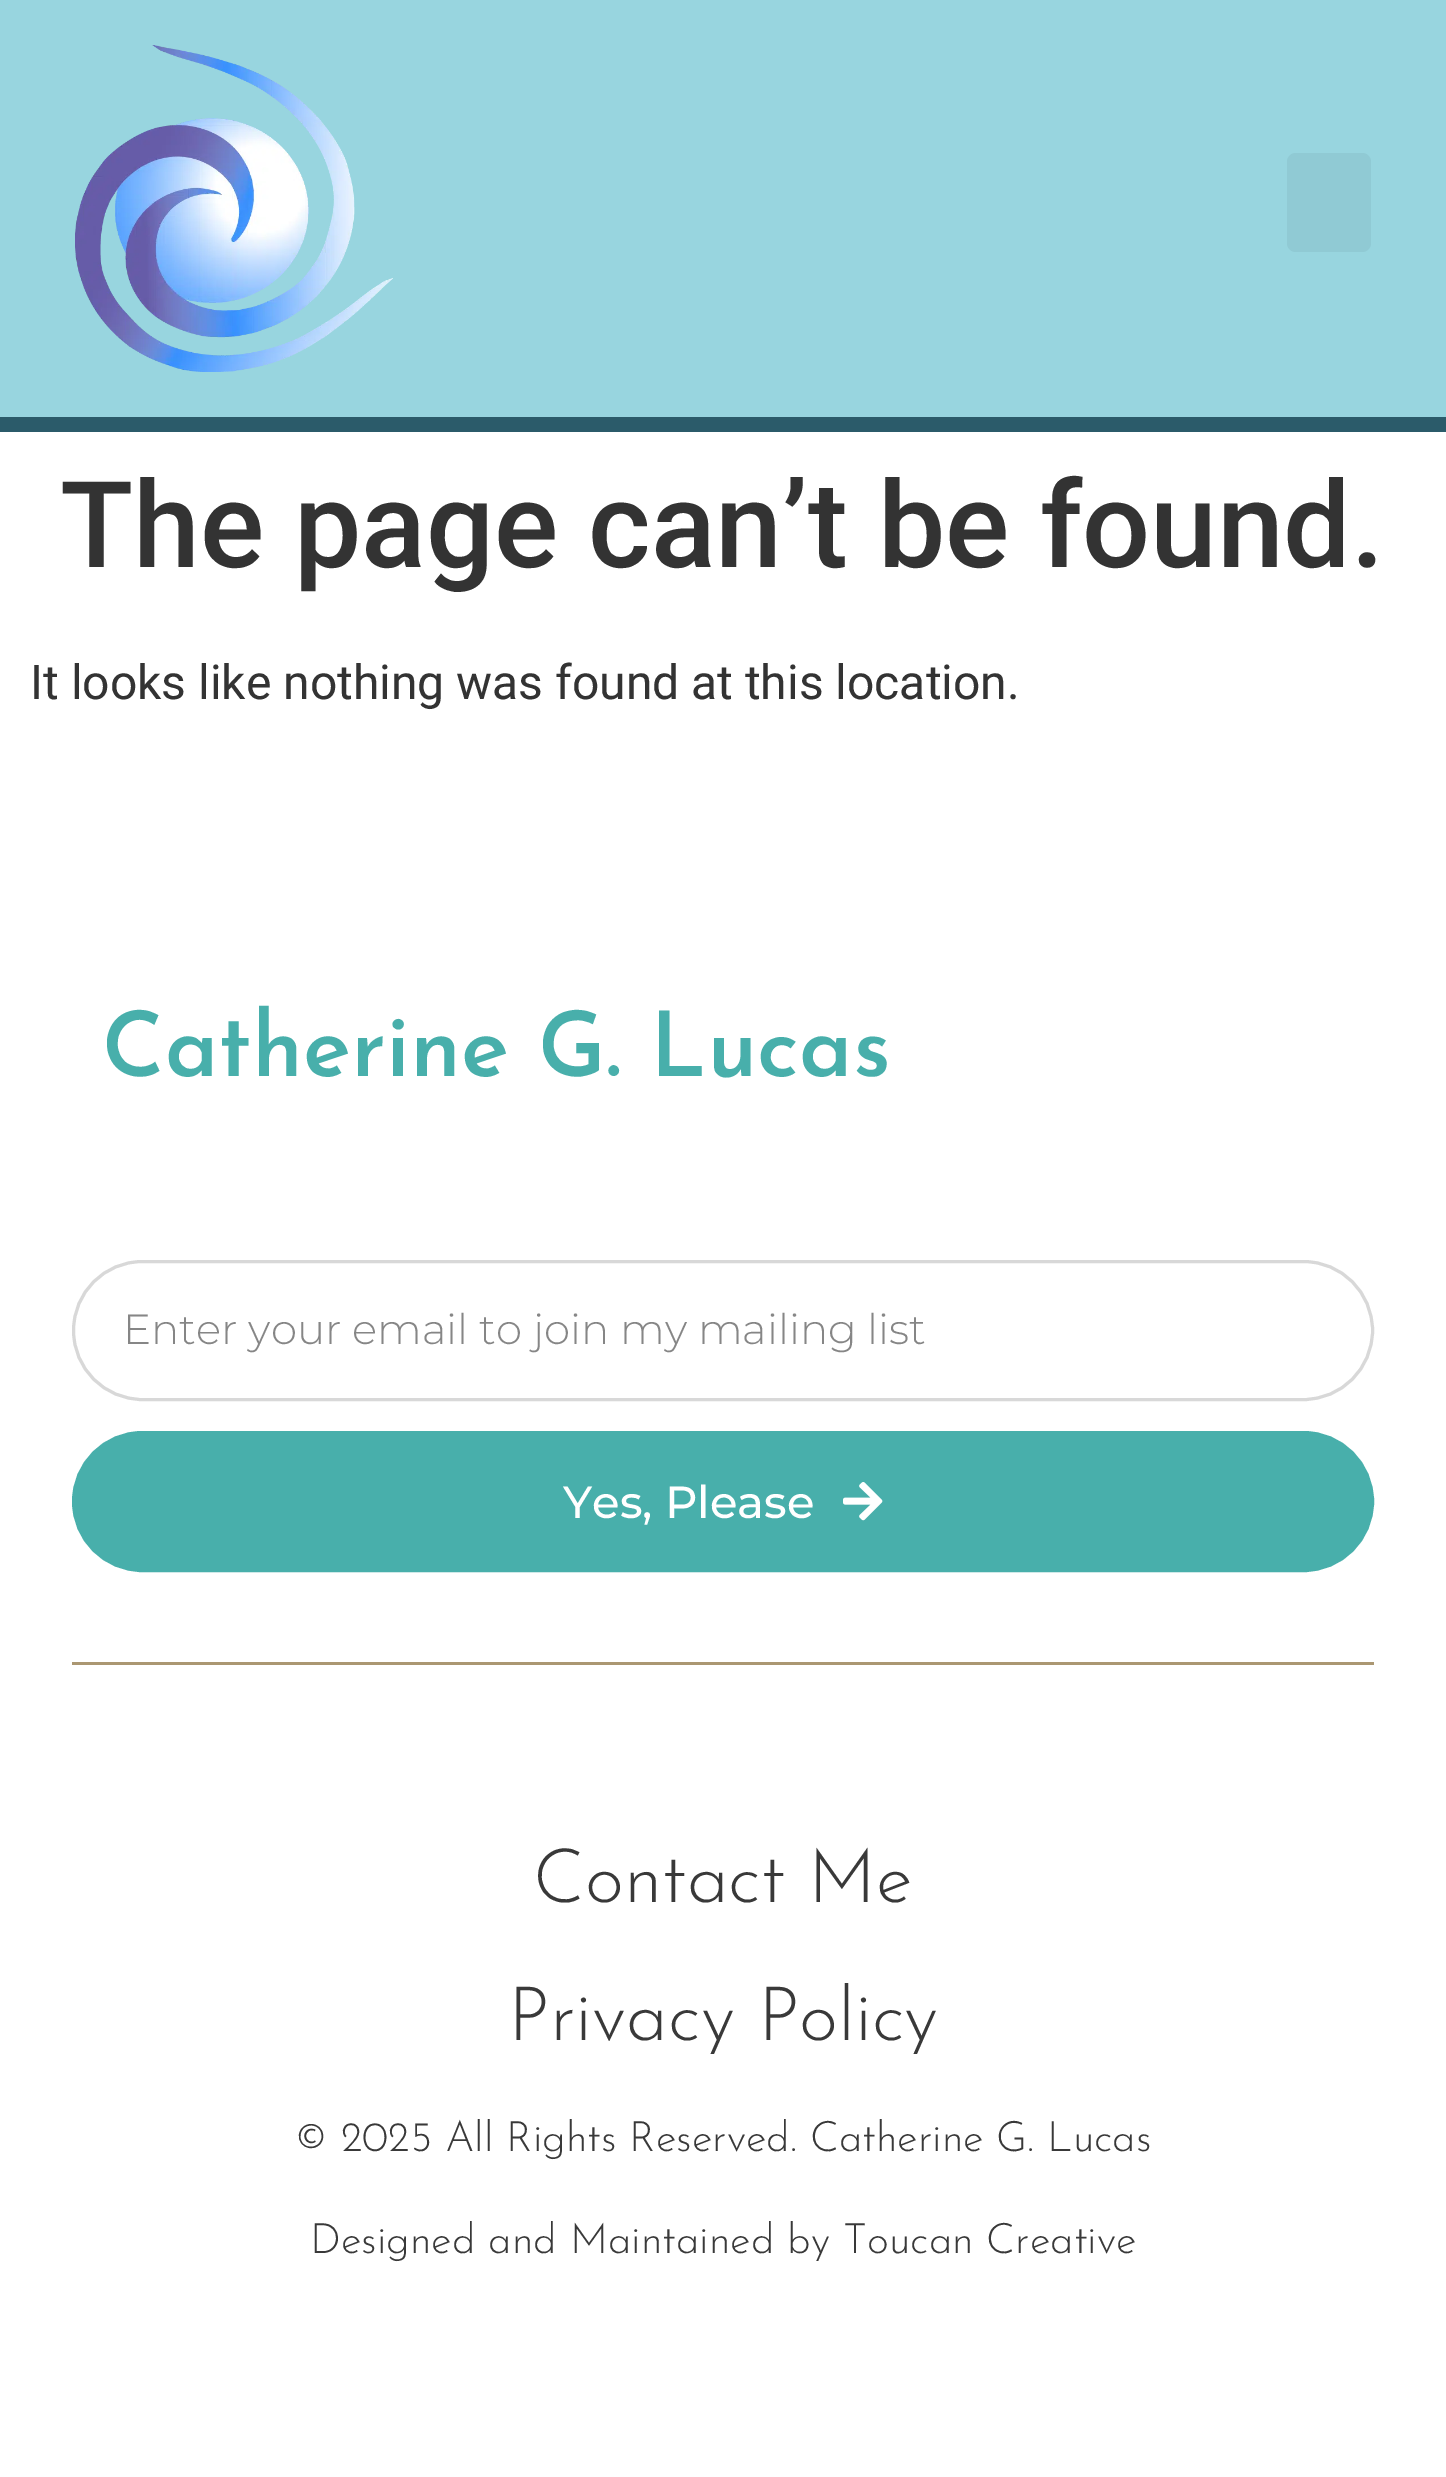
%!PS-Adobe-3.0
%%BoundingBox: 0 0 1446 2477
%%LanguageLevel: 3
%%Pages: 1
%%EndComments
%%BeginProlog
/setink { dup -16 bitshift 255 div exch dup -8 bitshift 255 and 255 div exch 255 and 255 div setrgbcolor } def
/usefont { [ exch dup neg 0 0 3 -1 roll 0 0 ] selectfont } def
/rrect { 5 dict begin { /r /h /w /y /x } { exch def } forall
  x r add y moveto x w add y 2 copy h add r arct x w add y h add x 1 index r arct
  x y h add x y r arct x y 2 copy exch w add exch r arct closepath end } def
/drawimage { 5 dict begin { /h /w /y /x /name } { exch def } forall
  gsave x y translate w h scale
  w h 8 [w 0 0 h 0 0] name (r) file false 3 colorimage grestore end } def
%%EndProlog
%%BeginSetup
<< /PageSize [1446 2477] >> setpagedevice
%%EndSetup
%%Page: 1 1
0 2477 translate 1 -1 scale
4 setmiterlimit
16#FFFFFF setink
0 0 1446 2477 rectfill
16#98D5DF setink
0 0 1446 417 rectfill
16#2B5B6A setink
0 417 1446 15 rectfill
(img1.raw) 75 45 318 327 drawimage
16#90CAD4 setink
1287 153 84 99 9 rrect fill
/Roboto-Medium 120 usefont
16#333333 setink
60 567 moveto (The page can’t be found.) show
/Roboto-Regular 48 usefont
30 699 moveto (It looks like nothing was found at this location.) show
/JosefinSans-SemiBold 90 usefont
16#48AFAB setink
102 1076 moveto (Catherine G. Lucas) show
16#D8D8D8 setink
3 setlinewidth
73.5 1261.5 1299 138 69 rrect stroke
/Montserrat-Light 42 usefont
16#868686 setink
123 1344 moveto (Enter your email to join my mailing list) show
16#48AFAB setink
75 1434 1296 135 67.5 rrect gsave fill grestore
6 setlinewidth
stroke
/Montserrat-Medium 45 usefont
16#FFFFFF setink
563 1518 moveto (Yes, Please) show
(img2.raw) 843 1482 40 39 drawimage
16#AB9772 setink
72 1662 1302 3 rectfill
/JosefinSans-Light 75 usefont
16#393939 setink
533 1902 moveto (Contact Me) show
508 2040 moveto (Privacy Policy) show
/JosefinSans-Light 42 usefont
294 2151 moveto (© 2025 All Rights Reserved. Catherine G. Lucas) show
310 2253 moveto (Designed and Maintained by Toucan Creative) show
showpage
%%EOF
